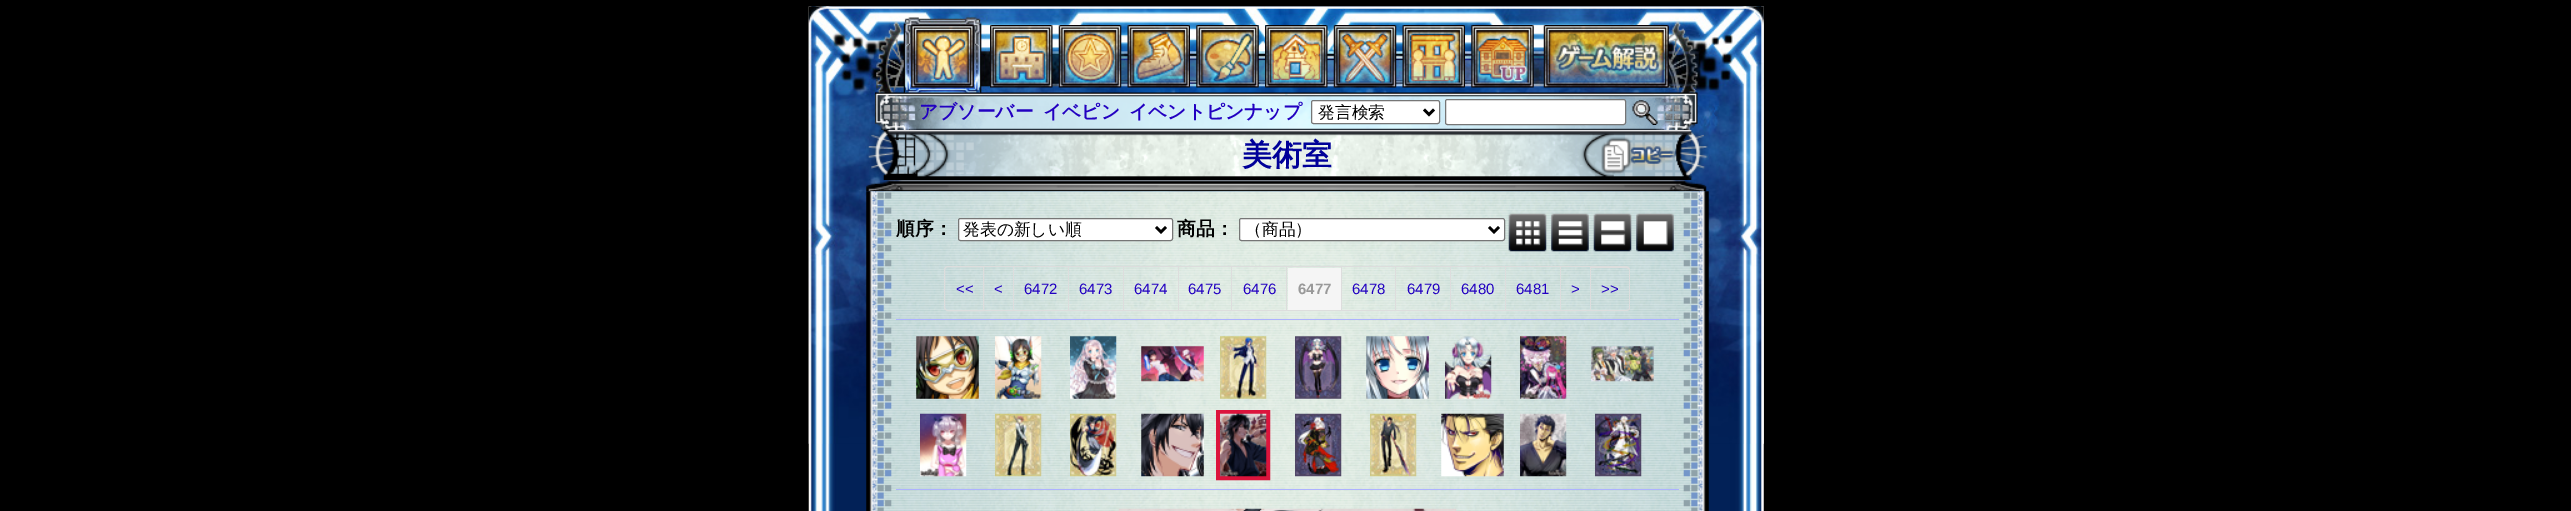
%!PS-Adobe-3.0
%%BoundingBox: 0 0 2571 511
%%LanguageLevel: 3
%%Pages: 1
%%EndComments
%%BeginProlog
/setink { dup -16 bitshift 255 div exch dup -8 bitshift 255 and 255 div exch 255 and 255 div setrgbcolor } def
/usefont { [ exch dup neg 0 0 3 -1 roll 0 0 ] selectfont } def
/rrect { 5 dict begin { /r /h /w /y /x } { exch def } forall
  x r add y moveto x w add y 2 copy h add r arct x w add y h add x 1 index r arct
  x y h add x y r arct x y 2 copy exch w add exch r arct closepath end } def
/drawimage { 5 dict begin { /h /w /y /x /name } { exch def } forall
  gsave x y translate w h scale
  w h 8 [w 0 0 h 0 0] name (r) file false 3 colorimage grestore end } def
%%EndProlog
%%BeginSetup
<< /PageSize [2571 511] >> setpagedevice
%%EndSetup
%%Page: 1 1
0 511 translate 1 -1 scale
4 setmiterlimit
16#000000 setink
0 0 2571 511 rectfill
(img1.raw) 808 6 956 505 drawimage
(img2.raw) 808 6 956 438 drawimage
(img3.raw) 911 25 63 63 drawimage
(img4.raw) 990 25 63 63 drawimage
(img5.raw) 1058 25 64 63 drawimage
(img6.raw) 1127 25 63 63 drawimage
(img7.raw) 1196 25 63 63 drawimage
(img8.raw) 1265 25 63 63 drawimage
(img9.raw) 1333 25 64 63 drawimage
(img10.raw) 1402 25 63 63 drawimage
(img11.raw) 1471 25 63 63 drawimage
(img12.raw) 1543 25 126 63 drawimage
(img13.raw) 875 92 823 38 drawimage
/WenQuanYiZenHei-Bold 18.75 usefont
16#2200C1 setink
[
    [(アブソーバー) 919 118]
    [(イベピン) 1043 118]
    [(イベントピンナップ) 1129 118]
] { aload pop moveto show } forall
16#FFFFFF setink
1311.5 100.5 128 23 2 rrect gsave fill grestore
16#767676 setink
stroke
16#000000 setink
2.5 setlinewidth
1424 109.5 moveto 1429 114.5 lineto 1434 109.5 lineto stroke
/WenQuanYiZenHei-Medium 16.75 usefont
1318 118 moveto (発言検索) show
16#FFFFFF setink
1445.5 99.5 180 25 2 rrect gsave fill grestore
16#767676 setink
1 setlinewidth
stroke
(img14.raw) 1632 100 26 25 drawimage
(img15.raw) 867 130 841 50 drawimage
/WenQuanYiZenHei-Bold 30 usefont
16#000099 setink
1242 165 moveto (美術室) show
(img16.raw) 1580 133 112 45 drawimage
(img17.raw) 866 180 841 12 drawimage
(img18.raw) 866 191 843 320 drawimage
/WenQuanYiZenHei-Bold 18.75 usefont
16#000000 setink
896 235 moveto (順序：) show
16#FFFFFF setink
958.5 218.5 214 22 2 rrect gsave fill grestore
16#767676 setink
stroke
16#000000 setink
2.5 setlinewidth
1156 227 moveto 1161 232 lineto 1166 227 lineto stroke
/WenQuanYiZenHei-Medium 16.75 usefont
963 235 moveto (発表の新しい順) show
/WenQuanYiZenHei-Bold 18.75 usefont
1177 235 moveto (商品：) show
16#FFFFFF setink
1239.5 218.5 265 22 2 rrect gsave fill grestore
16#767676 setink
1 setlinewidth
stroke
16#000000 setink
2.5 setlinewidth
1489 227 moveto 1494 232 lineto 1499 227 lineto stroke
/WenQuanYiZenHei-Medium 16.75 usefont
1245 235 moveto (（商品）) show
(img19.raw) 1508 213 39 39 drawimage
(img20.raw) 1551 213 38 39 drawimage
(img21.raw) 1593 213 39 39 drawimage
(img22.raw) 1636 213 38 39 drawimage
16#DDDDDD setink
1 setlinewidth
948 266.5 moveto 983.5 266.5 lineto 983.5 310.5 lineto 948 310.5 lineto 946 310.5 944.5 309 944.5 307 curveto 944.5 270 lineto 944.5 268 946 266.5 948 266.5 curveto closepath stroke
/LiberationSans-Regular 15 usefont
16#2200C1 setink
956 294 moveto (<<) show
[
    [984 266 607 1 16#DDDDDD]
    [1013 266 1 45 16#DDDDDD]
    [984 310 30 1 16#DDDDDD]
] { aload pop setink rectfill } forall
16#2200C1 setink
994 294 moveto (<) show
16#DDDDDD setink
1068 266 1 45 rectfill
1014 310 55 1 rectfill
16#2200C1 setink
1024 294 moveto (6472) show
16#DDDDDD setink
1123 266 1 45 rectfill
1069 310 55 1 rectfill
16#2200C1 setink
1079 294 moveto (6473) show
16#DDDDDD setink
1178 266 1 45 rectfill
1124 310 55 1 rectfill
16#2200C1 setink
1134 294 moveto (6474) show
16#DDDDDD setink
1231 266 1 45 rectfill
1179 310 54 1 rectfill
16#2200C1 setink
1188 294 moveto (6475) show
16#DDDDDD setink
1286 266 1 45 rectfill
1233 310 55 1 rectfill
16#2200C1 setink
1243 294 moveto (6476) show
[
    [1288 268 53 42 16#F5F5F5]
    [1341 266 1 45 16#DDDDDD]
    [1288 310 55 1 16#DDDDDD]
] { aload pop setink rectfill } forall
/LiberationSans-Bold 15 usefont
16#999999 setink
1298 294 moveto (6477) show
16#DDDDDD setink
1395 266 1 45 rectfill
1343 310 53 1 rectfill
/LiberationSans-Regular 15 usefont
16#2200C1 setink
1352 294 moveto (6478) show
16#DDDDDD setink
1450 266 1 45 rectfill
1396 310 55 1 rectfill
16#2200C1 setink
1407 294 moveto (6479) show
16#DDDDDD setink
1505 266 1 45 rectfill
1451 310 55 1 rectfill
16#2200C1 setink
1461 294 moveto (6480) show
16#DDDDDD setink
1560 266 1 45 rectfill
1506 310 55 1 rectfill
16#2200C1 setink
1516 294 moveto (6481) show
16#DDDDDD setink
1590 266 1 45 rectfill
1561 310 30 1 rectfill
16#2200C1 setink
1571 294 moveto (>) show
16#DDDDDD setink
1591 266 moveto 1626 266 lineto 1628 266 1630 268 1630 270 curveto 1630 308 lineto 1630 310 1628 311 1626 311 curveto 1591 311 lineto closepath 1591 268 moveto 1626 268 lineto 1628 268 1629 269 1629 270 curveto 1629 308 lineto 1629 309 1628 310 1626 310 curveto 1591 310 lineto closepath eofill
16#2200C1 setink
1601 294 moveto (>>) show
16#ADB2FF setink
896 319 783 1 rectfill
896 489 783 1 rectfill
(img23.raw) 916 336 63 63 drawimage
(img24.raw) 995 336 47 63 drawimage
(img25.raw) 1070 336 47 63 drawimage
(img26.raw) 1141 346 63 36 drawimage
(img27.raw) 1220 336 47 63 drawimage
(img28.raw) 1295 336 47 63 drawimage
(img29.raw) 1366 336 63 63 drawimage
(img30.raw) 1445 336 47 63 drawimage
(img31.raw) 1520 336 47 63 drawimage
(img32.raw) 1591 346 63 36 drawimage
(img33.raw) 920 413 47 64 drawimage
(img34.raw) 995 413 47 64 drawimage
(img35.raw) 1070 413 47 64 drawimage
(img36.raw) 1141 413 63 64 drawimage
16#DC143C setink
4 setlinewidth
1218 412 50 66 rectstroke
(img37.raw) 1220 413 47 64 drawimage
(img38.raw) 1295 413 47 64 drawimage
(img39.raw) 1370 413 47 64 drawimage
(img40.raw) 1441 413 63 64 drawimage
(img41.raw) 1520 413 47 64 drawimage
(img42.raw) 1595 413 47 64 drawimage
(img43.raw) 1118 508 339 3 drawimage
showpage
%%EOF
